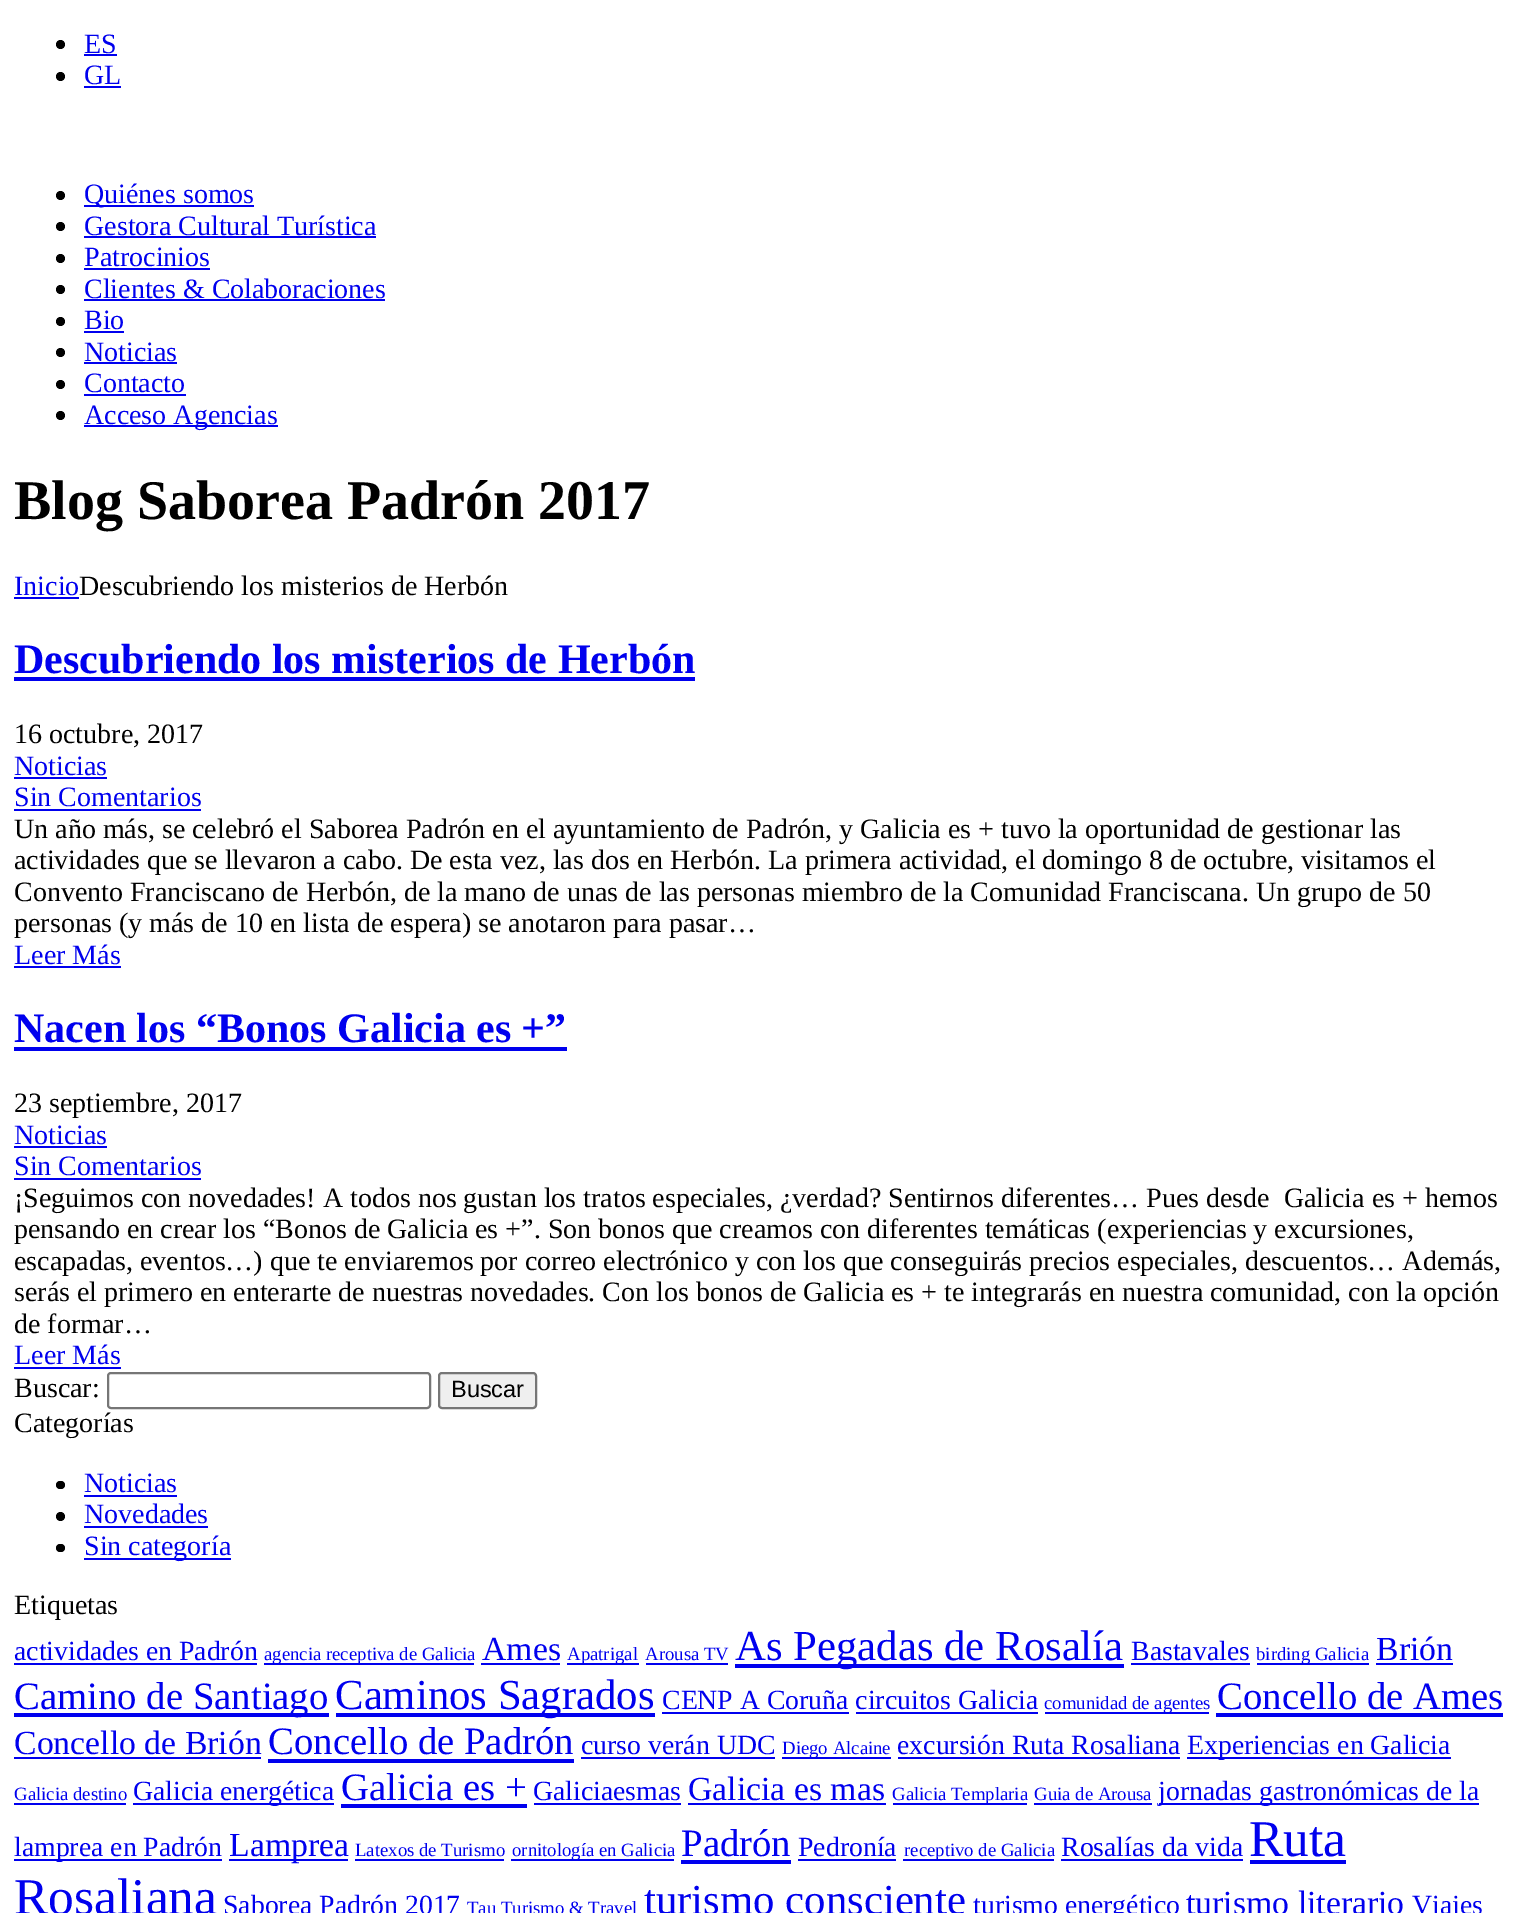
%!PS-Adobe-3.0
%%BoundingBox: 0 0 1518 1913
%%LanguageLevel: 3
%%Pages: 1
%%EndComments
%%BeginProlog
/setink { dup -16 bitshift 255 div exch dup -8 bitshift 255 and 255 div exch 255 and 255 div setrgbcolor } def
/usefont { [ exch dup neg 0 0 3 -1 roll 0 0 ] selectfont } def
/disc { newpath 0 360 arc closepath } def
/rrect { 5 dict begin { /r /h /w /y /x } { exch def } forall
  x r add y moveto x w add y 2 copy h add r arct x w add y h add x 1 index r arct
  x y h add x y r arct x y 2 copy exch w add exch r arct closepath end } def
%%EndProlog
%%BeginSetup
<< /PageSize [1518 1913] >> setpagedevice
%%EndSetup
%%Page: 1 1
0 1913 translate 1 -1 scale
4 setmiterlimit
16#FFFFFF setink
0 0 1518 1913 rectfill
16#000000 setink
60.5 44.5 4.5 disc fill
/LiberationSerif-Regular 28 usefont
16#0000EE setink
84 53 moveto (ES) show
84 54 33 2 rectfill
16#000000 setink
60.5 76.5 4.5 disc fill
16#0000EE setink
84 84 moveto (GL) show
84 86 37 2 rectfill
16#000000 setink
60.5 195.5 4.5 disc fill
16#0000EE setink
84 205 170 2 rectfill
84 203 moveto (Quiénes somos) show
16#000000 setink
60.5 226.5 4.5 disc fill
16#0000EE setink
84 235 moveto (Gestora Cultural Turística) show
84 236 292 2 rectfill
16#000000 setink
60.5 258.5 4.5 disc fill
16#0000EE setink
84 266 moveto (Patrocinios) show
84 268 126 2 rectfill
16#000000 setink
60.5 289.5 4.5 disc fill
16#0000EE setink
84 298 moveto (Clientes & Colaboraciones) show
84 299 301 2 rectfill
16#000000 setink
60.5 321.5 4.5 disc fill
16#0000EE setink
84 329 moveto (Bio) show
84 331 40 2 rectfill
16#000000 setink
60.5 352.5 4.5 disc fill
16#0000EE setink
84 361 moveto (Noticias) show
84 362 93 2 rectfill
16#000000 setink
60.5 384.5 4.5 disc fill
16#0000EE setink
84 392 moveto (Contacto) show
84 394 102 2 rectfill
16#000000 setink
60.5 415.5 4.5 disc fill
16#0000EE setink
84 425 194 2 rectfill
84 424 moveto (Acceso Agencias) show
/LiberationSerif-Bold 56 usefont
16#000000 setink
14 519 moveto (Blog Saborea Padrón 2017) show
/LiberationSerif-Regular 28 usefont
16#0000EE setink
14 595 moveto (Inicio) show
14 597 65 2 rectfill
16#000000 setink
79 595 moveto (Descubriendo los misterios de Herbón) show
/LiberationSerif-Bold 42 usefont
16#0000EE setink
14 673 moveto (Descubriendo los misterios de Herbón) show
14 677 681 4 rectfill
/LiberationSerif-Regular 28 usefont
16#000000 setink
14 743 moveto (16 octubre, 2017) show
16#0000EE setink
14 775 moveto (Noticias) show
14 777 93 2 rectfill
14 806 moveto (Sin Comentarios) show
14 809 187 2 rectfill
16#000000 setink
[
    [(Un año más, se celebró el Saborea Padrón en el ayuntamiento de Padrón, y Galicia es + tuvo la oportunidad de gestionar las) 14 838]
    [(actividades que se llevaron a cabo. De esta vez, las dos en Herbón. La primera actividad, el domingo 8 de octubre, visitamos el) 14 869]
    [(Convento Franciscano de Herbón, de la mano de unas de las personas miembro de la Comunidad Franciscana. Un grupo de 50) 14 901]
    [(personas \(y más de 10 en lista de espera\) se anotaron para pasar…) 14 932]
] { aload pop moveto show } forall
16#0000EE setink
14 964 moveto (Leer Más) show
14 966 107 2 rectfill
/LiberationSerif-Bold 42 usefont
14 1042 moveto (Nacen los “Bonos Galicia es +”) show
14 1047 553 4 rectfill
/LiberationSerif-Regular 28 usefont
16#000000 setink
14 1112 moveto (23 septiembre, 2017) show
16#0000EE setink
14 1144 moveto (Noticias) show
14 1146 93 2 rectfill
14 1175 moveto (Sin Comentarios) show
14 1178 187 2 rectfill
16#000000 setink
[
    [(¡Seguimos con novedades! A todos nos gustan los tratos especiales, ¿verdad? Sentirnos diferentes… Pues desde  Galicia es + hemos) 14 1207]
    [(pensando en crear los “Bonos de Galicia es +”. Son bonos que creamos con diferentes temáticas \(experiencias y excursiones,) 14 1238]
    [(escapadas, eventos…\) que te enviaremos por correo electrónico y con los que conseguirás precios especiales, descuentos… Además,) 14 1270]
    [(serás el primero en enterarte de nuestras novedades. Con los bonos de Galicia es + te integrarás en nuestra comunidad, con la opción) 14 1301]
    [(de formar…) 14 1333]
] { aload pop moveto show } forall
16#0000EE setink
14 1364 moveto (Leer Más) show
14 1367 107 2 rectfill
16#000000 setink
14 1397 moveto (Buscar:) show
16#767676 setink
2 setlinewidth
108 1373 322 35 3 rrect stroke
16#EFEFEF setink
439 1373 97 35 3 rrect gsave fill grestore
16#767676 setink
stroke
/LiberationSans-Regular 23.5 usefont
16#000000 setink
451 1397 moveto (Buscar) show
/LiberationSerif-Regular 28 usefont
14 1432 moveto (Categorías) show
56 1481 9 8 4 rrect fill
16#0000EE setink
84 1492 moveto (Noticias) show
84 1495 93 2 rectfill
16#000000 setink
60.5 1516.5 4.5 disc fill
16#0000EE setink
84 1523 moveto (Novedades) show
84 1526 124 2 rectfill
16#000000 setink
56 1544 9 8 4 rrect fill
16#0000EE setink
84 1558 147 2 rectfill
84 1555 moveto (Sin categoría) show
16#000000 setink
14 1614 moveto (Etiquetas) show
/LiberationSerif-Regular 27.75 usefont
16#0000EE setink
14 1660 moveto (actividades en Padrón) show
14 1663 243 2 rectfill
264 1663 210 2 rectfill
/LiberationSerif-Regular 18.75 usefont
264 1660 moveto (agencia receptiva de Galicia) show
/LiberationSerif-Regular 33.75 usefont
482 1660 moveto (Ames) show
481 1663 79 2 rectfill
567 1663 72 2 rectfill
/LiberationSerif-Regular 18.75 usefont
567 1660 moveto (Apatrigal) show
645 1660 moveto (Arousa TV) show
646 1663 82 2 rectfill
735 1664 389 4 rectfill
/LiberationSerif-Regular 42.75 usefont
735 1660 moveto (As Pegadas de Rosalía) show
/LiberationSerif-Regular 27.75 usefont
1131 1660 moveto (Bastavales) show
1131 1663 119 2 rectfill
1257 1663 112 2 rectfill
/LiberationSerif-Regular 18.75 usefont
1256 1660 moveto (birding Galicia) show
/LiberationSerif-Regular 33.75 usefont
1376 1660 moveto (Brión) show
1376 1663 77 2 rectfill
14 1713 315 4 rectfill
/LiberationSerif-Regular 38.75 usefont
14 1709 moveto (Camino de Santiago) show
336 1713 319 4 rectfill
/LiberationSerif-Regular 42.75 usefont
335 1709 moveto (Caminos Sagrados) show
/LiberationSerif-Regular 27.75 usefont
662 1709 moveto (CENP A Coruña circuitos Galicia) show
662 1712 187 2 rectfill
1045 1712 164 2 rectfill
/LiberationSerif-Regular 18.75 usefont
1044 1709 moveto (comunidad de agentes) show
/LiberationSerif-Regular 38.75 usefont
1217 1709 moveto (Concello de Ames) show
1216 1713 287 4 rectfill
856 1712 182 2 rectfill
/LiberationSerif-Regular 33.75 usefont
14 1754 moveto (Concello de Brión) show
14 1757 247 2 rectfill
/LiberationSerif-Regular 38.75 usefont
268 1754 moveto (Concello de Padrón) show
268 1759 306 4 rectfill
/LiberationSerif-Regular 27.75 usefont
581 1754 moveto (curso verán UDC) show
581 1757 194 2 rectfill
782 1757 109 2 rectfill
/LiberationSerif-Regular 18.75 usefont
782 1754 moveto (Diego Alcaine) show
/LiberationSerif-Regular 27.75 usefont
897 1754 moveto (excursión Ruta Rosaliana) show
898 1757 282 2 rectfill
1187 1757 264 2 rectfill
1187 1754 moveto (Experiencias en Galicia) show
/LiberationSerif-Regular 18.75 usefont
14 1800 moveto (Galicia destino) show
14 1803 112 2 rectfill
133 1803 201 2 rectfill
/LiberationSerif-Regular 27.75 usefont
133 1800 moveto (Galicia energética) show
/LiberationSerif-Regular 38.75 usefont
341 1800 moveto (Galicia es +) show
341 1804 186 4 rectfill
/LiberationSerif-Regular 27.75 usefont
533 1800 moveto (Galiciaesmas) show
534 1803 147 2 rectfill
/LiberationSerif-Regular 33.75 usefont
688 1800 moveto (Galicia es mas) show
688 1803 198 2 rectfill
893 1803 134 2 rectfill
/LiberationSerif-Regular 18.75 usefont
892 1800 moveto (Galicia Templaria) show
1034 1800 moveto (Guia de Arousa) show
1034 1803 118 2 rectfill
1159 1803 320 2 rectfill
/LiberationSerif-Regular 27.75 usefont
1158 1800 moveto (jornadas gastronómicas de la) show
14 1859 208 2 rectfill
14 1856 moveto (lamprea en Padrón) show
229 1859 119 2 rectfill
/LiberationSerif-Regular 33.75 usefont
229 1856 moveto (Lamprea) show
/LiberationSerif-Regular 18.75 usefont
355 1856 moveto (Latexos de Turismo) show
355 1859 149 2 rectfill
511 1859 163 2 rectfill
512 1856 moveto (ornitología en Galicia) show
/LiberationSerif-Regular 38.75 usefont
681 1856 moveto (Padrón) show
681 1860 110 4 rectfill
/LiberationSerif-Regular 27.75 usefont
798 1856 moveto (Pedronía) show
798 1859 98 2 rectfill
903 1859 151 2 rectfill
/LiberationSerif-Regular 18.75 usefont
904 1856 moveto (receptivo de Galicia) show
/LiberationSerif-Regular 27.75 usefont
1061 1856 moveto (Rosalías da vida) show
1061 1859 182 2 rectfill
/LiberationSerif-Regular 51.5 usefont
1249 1856 moveto (Ruta) show
1250 1860 96 4 rectfill
14 1914 moveto (Rosaliana) show
/LiberationSerif-Regular 27.75 usefont
223 1914 moveto (Saborea Padrón 2017) show
/LiberationSerif-Regular 18.75 usefont
467 1914 moveto (Tau Turismo & Travel) show
/LiberationSerif-Regular 42.75 usefont
644 1914 moveto (turismo consciente) show
/LiberationSerif-Regular 27.75 usefont
973 1914 moveto (turismo energético) show
/LiberationSerif-Regular 33.75 usefont
1186 1914 moveto (turismo literario) show
/LiberationSerif-Regular 27.75 usefont
1412 1914 moveto (Viajes) show
showpage
%%EOF
